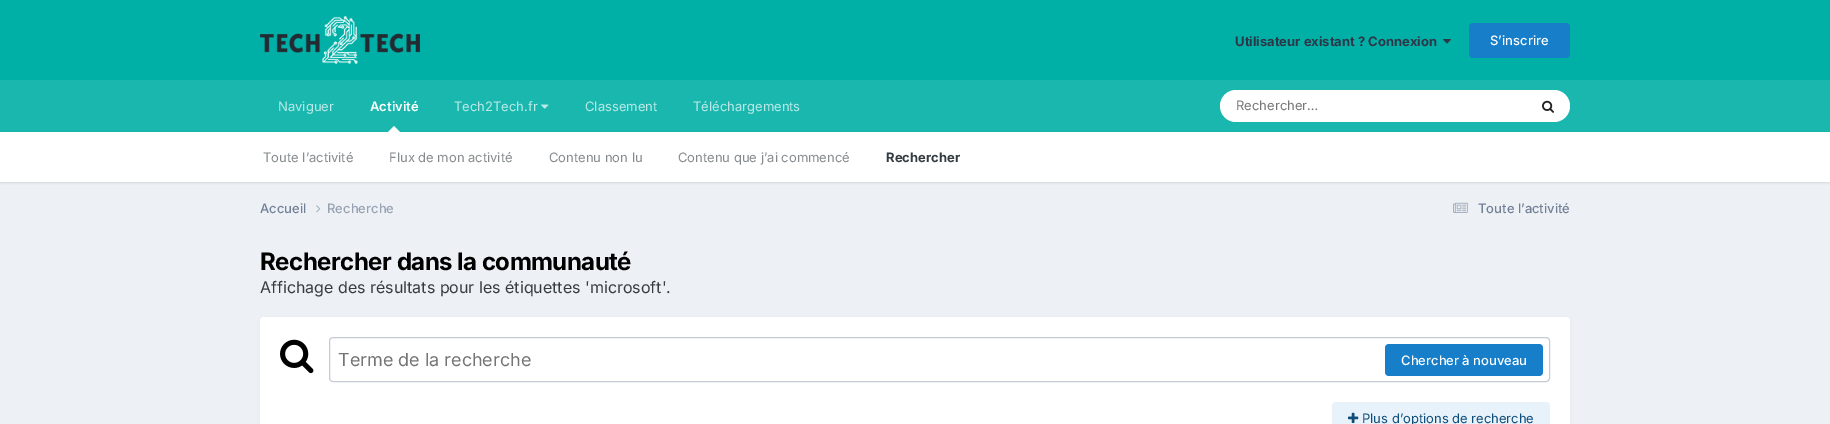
%!PS-Adobe-3.0
%%BoundingBox: 0 0 1830 424
%%LanguageLevel: 3
%%Pages: 1
%%EndComments
%%BeginProlog
/setink { dup -16 bitshift 255 div exch dup -8 bitshift 255 and 255 div exch 255 and 255 div setrgbcolor } def
/usefont { [ exch dup neg 0 0 3 -1 roll 0 0 ] selectfont } def
/setalpha { dup .setfillconstantalpha .setstrokeconstantalpha } def
/rrect { 5 dict begin { /r /h /w /y /x } { exch def } forall
  x r add y moveto x w add y 2 copy h add r arct x w add y h add x 1 index r arct
  x y h add x y r arct x y 2 copy exch w add exch r arct closepath end } def
/softshadow { 12 dict begin { /a /b /q /h /w /y /x } { exch def } forall gsave /was 0 def
  9 -2 -9 { dup b mul 4 div /e exch def 1 sub .425 mul 2.718 exch exp 1 add a .99 .min exch div /now exch def
    1 1 now sub 1 was sub div sub setalpha /was now def
    w h .min e 2 mul add 0 gt { x e sub y e sub w e 2 mul add h e 2 mul add
      q e add b .6 mul add w h .min 2 div e add .min 0 .max rrect fill } if } for grestore end } def
/drawimage { 5 dict begin { /h /w /y /x /name } { exch def } forall
  gsave x y translate w h scale
  w h 8 [w 0 0 h 0 0] name (r) file false 3 colorimage grestore end } def
%%EndProlog
%%BeginSetup
<< /PageSize [1830 424] /PageUsesTransparency true >> setpagedevice
%%EndSetup
%%Page: 1 1
0 .pushpdf14devicefilter
0 424 translate 1 -1 scale
4 setmiterlimit
16#EDF0F4 setink
0 0 1830 424 rectfill
16#00B0A6 setink
0 0 1830 80 rectfill
(img1.raw) 260 16 160 48 drawimage
/Inter-Bold 13 usefont
16#2D3748 setink
1235 46 moveto (Utilisateur existant ? Connexion) show
(img2.raw) 1443 39 8 5 drawimage
16#177EC9 setink
1469 23 101 35 4 rrect fill
/Inter-Medium 13 usefont
16#FFFFFF setink
1490 45 moveto (S’inscrire) show
16#1AB7AE setink
0 80 1830 52 rectfill
/Inter-SemiBold 13 usefont
16#FFFFFF setink
370 111 moveto (Activité) show
16#000000 setink
0 133 1830 50 0 1 0.1 softshadow
16#FFFFFF setink
400 132 moveto 388 132 lineto 394 126 lineto closepath fill
0 132 1830 50 rectfill
/Inter-Regular 13 usefont
16#868A8D setink
[
    [(Toute l’activité) 263 162]
    [(Flux de mon activité) 389 162]
    [(Contenu non lu) 549 162]
    [(Contenu que j’ai commencé) 678 162]
] { aload pop moveto show } forall
/Inter-Bold 13 usefont
16#353C41 setink
886 162 moveto (Rechercher) show
/Inter-Regular 13 usefont
16#BAE9E7 setink
278 111 moveto (Naviguer) show
454 111 moveto (Tech2Tech.fr) show
(img3.raw) 541 104 8 5 drawimage
585 111 moveto (Classement) show
693 111 moveto (Téléchargements) show
16#FFFFFF setink
1220 90 350 32 16 rrect fill
16#757575 setink
1236 110 moveto (Rechercher…) show
(img4.raw) 1542 100 12 13 drawimage
/Inter-Medium 13 usefont
16#718096 setink
260 213 moveto (Accueil) show
(img5.raw) 316 205 5 8 drawimage
16#96A2B2 setink
327 213 moveto (Recherche) show
(img6.raw) 1453 202 15 11 drawimage
16#718096 setink
1478 213 moveto (Toute l’activité) show
/Inter-Bold 24 usefont
16#000000 setink
260 270 moveto -0.5 0 (Rechercher dans la communauté) ashow
/Inter-Regular 16 usefont
16#353C41 setink
260 293 moveto (Affichage des résultats pour les étiquettes 'microsoft'.) show
16#2D3748 setink
261 320 1308 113 3 2 0.1 softshadow
16#FFFFFF setink
260 317 1310 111 4 rrect fill
(img7.raw) 280 339 34 35 drawimage
16#C6CCD5 setink
329.5 337.5 1220 44 3.5 rrect stroke
/Inter-Regular 18 usefont
16#757575 setink
338 366 moveto (Terme de la recherche) show
16#177EC9 setink
1385 344 158 32 4 rrect fill
/Inter-Medium 13 usefont
16#FFFFFF setink
1401 365 moveto (Chercher à nouveau) show
16#E8F2FA setink
1332 402 218 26 4 rrect fill
(img8.raw) 1348 412 11 11 drawimage
/Inter-Regular 13 usefont
16#0E4C79 setink
1362 423 moveto (Plus d’options de recherche) show
.poppdf14devicefilter showpage
%%EOF
